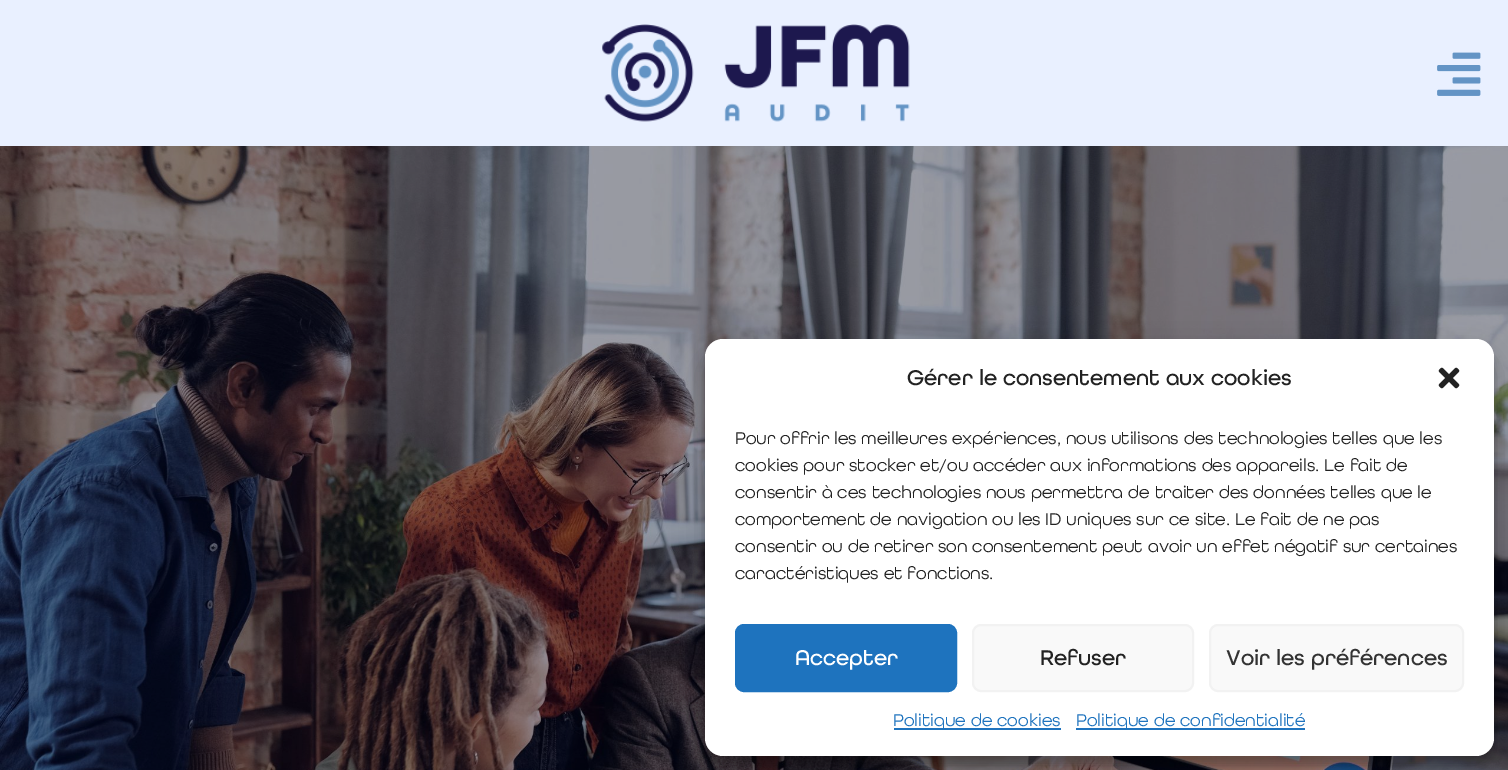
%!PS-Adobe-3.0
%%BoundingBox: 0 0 1508 770
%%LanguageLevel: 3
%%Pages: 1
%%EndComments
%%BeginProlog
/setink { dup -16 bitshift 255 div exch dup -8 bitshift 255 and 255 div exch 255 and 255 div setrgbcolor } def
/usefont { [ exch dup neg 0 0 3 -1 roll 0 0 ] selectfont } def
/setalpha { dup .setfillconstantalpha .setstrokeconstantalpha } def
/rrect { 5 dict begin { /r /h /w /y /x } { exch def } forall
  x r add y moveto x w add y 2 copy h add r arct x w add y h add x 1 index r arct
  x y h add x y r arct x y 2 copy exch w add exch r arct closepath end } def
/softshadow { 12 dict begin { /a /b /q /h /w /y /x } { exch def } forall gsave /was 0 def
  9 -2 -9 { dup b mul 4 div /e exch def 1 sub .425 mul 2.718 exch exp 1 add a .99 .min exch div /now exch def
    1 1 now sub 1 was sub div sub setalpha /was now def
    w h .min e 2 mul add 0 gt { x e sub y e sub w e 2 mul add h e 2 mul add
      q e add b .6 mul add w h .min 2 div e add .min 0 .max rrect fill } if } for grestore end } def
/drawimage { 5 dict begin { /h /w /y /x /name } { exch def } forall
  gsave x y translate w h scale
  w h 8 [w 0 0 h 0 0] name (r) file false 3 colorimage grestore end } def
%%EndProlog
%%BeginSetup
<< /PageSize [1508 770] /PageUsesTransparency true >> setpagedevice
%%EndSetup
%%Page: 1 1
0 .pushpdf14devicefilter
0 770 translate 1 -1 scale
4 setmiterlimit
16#FFFFFF setink
0 0 1508 770 rectfill
16#E9F0FF setink
0 0 1508 146 rectfill
(img1.raw) 602 24 308 98 drawimage
(img2.raw) 1437 52 44 44 drawimage
(img3.raw) 0 146 1508 624 drawimage
16#000000 setink
705 348 789 417 18 4.5 0.23 softshadow
705 354 789 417 18 15 0.19 softshadow
16#FFFFFF setink
705 339 789 417 18 rrect fill
/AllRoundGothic-Medium 22.5 usefont
16#222222 setink
907 385 moveto (Gérer le consentement aux cookies) show
(img4.raw) 1438 367 22 22 drawimage
/AllRoundGothic-Regular 18 usefont
[
    [(Pour offrir les meilleures expériences, nous utilisons des technologies telles que les) 735 444]
    [(cookies pour stocker et/ou accéder aux informations des appareils. Le fait de) 735 471]
    [(consentir à ces technologies nous permettra de traiter des données telles que le) 735 498]
    [(comportement de navigation ou les ID uniques sur ce site. Le fait de ne pas) 735 525]
    [(consentir ou de retirer son consentement peut avoir un effet négatif sur certaines) 735 552]
    [(caractéristiques et fonctions.) 735 579]
] { aload pop moveto show } forall
16#1E73BE setink
736 625 220 66 8 rrect gsave fill grestore
2 setlinewidth
stroke
/AllRoundGothic-Medium 22.5 usefont
16#FFFFFF setink
795 665 moveto (Accepter) show
16#F9F9F9 setink
973 625 220 66 8 rrect gsave fill grestore
16#F2F2F2 setink
stroke
16#222222 setink
1040 665 moveto (Refuser) show
16#F9F9F9 setink
1210 625 253 66 8 rrect gsave fill grestore
16#F2F2F2 setink
stroke
16#333333 setink
1226 665 moveto (Voir les préférences) show
16#1E73BE setink
894 728 167 2 rectfill
/AllRoundGothic-Regular 18 usefont
893 726 moveto (Politique de cookies) show
1076 728 229 2 rectfill
1076 726 moveto (Politique de confidentialité) show
.poppdf14devicefilter showpage
%%EOF
